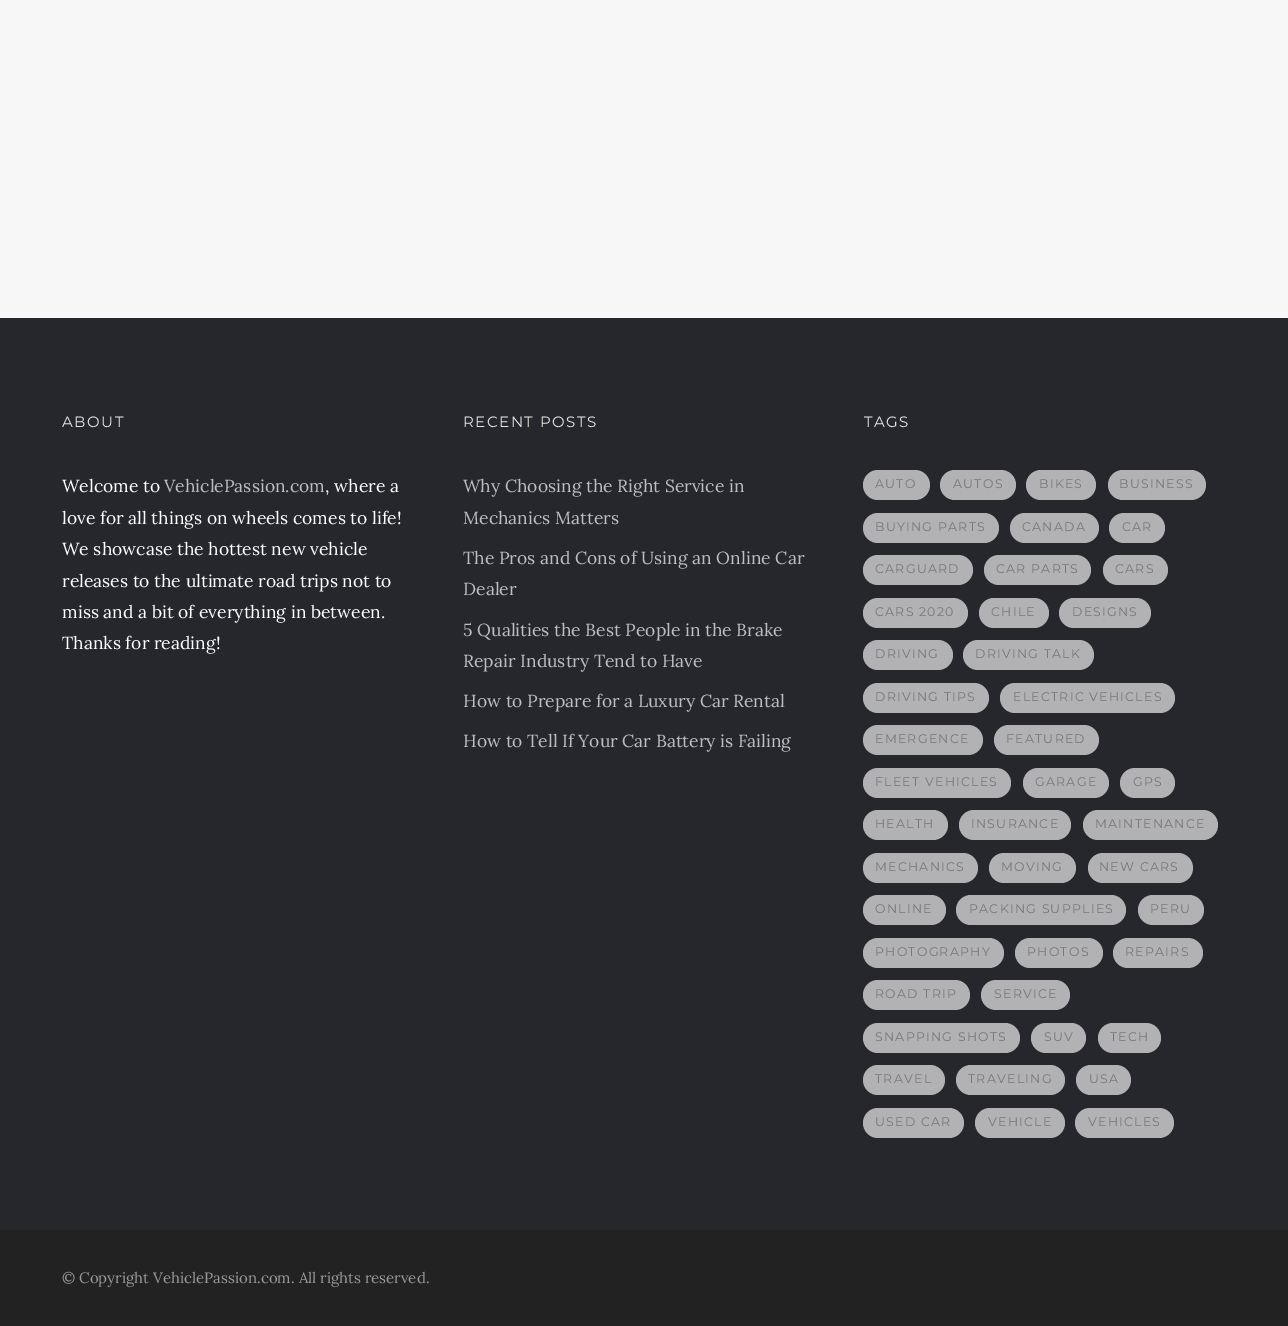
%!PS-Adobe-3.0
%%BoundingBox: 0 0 1288 1326
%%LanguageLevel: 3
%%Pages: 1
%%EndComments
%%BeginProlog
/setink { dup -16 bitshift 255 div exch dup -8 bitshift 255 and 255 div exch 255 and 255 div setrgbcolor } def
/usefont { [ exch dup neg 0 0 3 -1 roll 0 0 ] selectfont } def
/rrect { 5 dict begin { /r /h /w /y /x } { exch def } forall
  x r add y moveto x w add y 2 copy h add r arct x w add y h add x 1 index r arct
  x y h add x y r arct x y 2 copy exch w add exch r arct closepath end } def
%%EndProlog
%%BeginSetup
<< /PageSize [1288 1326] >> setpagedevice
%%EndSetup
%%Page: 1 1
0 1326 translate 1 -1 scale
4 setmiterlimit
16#26272D setink
0 0 1288 1326 rectfill
16#F7F7F7 setink
0 0 1288 318 rectfill
/Montserrat-Regular 15 usefont
16#E6E6E6 setink
62 427 moveto 1.5 0 (ABOUT) ashow
/Lora-Regular 17.5 usefont
16#FFFFFF setink
62 492 moveto (Welcome to) show
16#BEBEC0 setink
164 492 moveto (VehiclePassion.com) show
16#FFFFFF setink
[
    [(, where a) 325 492]
    [(love for all things on wheels comes to life!) 62 524]
    [(We showcase the hottest new vehicle) 62 555]
    [(releases to the ultimate road trips not to) 62 587]
    [(miss and a bit of everything in between.) 62 618]
    [(Thanks for reading!) 62 649]
] { aload pop moveto show } forall
/Montserrat-Regular 15 usefont
16#E6E6E6 setink
463 427 moveto 1.5 0 (RECENT POSTS) ashow
/Lora-Regular 17.5 usefont
16#BEBEC0 setink
[
    [(Why Choosing the Right Service in) 463 492]
    [(Mechanics Matters) 463 524]
    [(The Pros and Cons of Using an Online Car) 463 564]
    [(Dealer) 463 595]
    [(5 Qualities the Best People in the Brake) 463 636]
    [(Repair Industry Tend to Have) 463 667]
    [(How to Prepare for a Luxury Car Rental) 463 707]
    [(How to Tell If Your Car Battery is Failing) 463 747]
] { aload pop moveto show } forall
/Montserrat-Regular 15 usefont
16#E6E6E6 setink
864 427 moveto 1.5 0 (TAGS) ashow
16#B2B2B4 setink
863 470 67 30 15 rrect fill
/Montserrat-Regular 12.5 usefont
16#777779 setink
875 488 moveto 1.25 0 (AUTO) ashow
16#B2B2B4 setink
940 470 76 30 15 rrect fill
16#777779 setink
953 488 moveto 1.25 0 (AUTOS) ashow
16#B2B2B4 setink
1026 470 70 30 15 rrect fill
16#777779 setink
1039 488 moveto 1.25 0 (BIKES) ashow
16#B2B2B4 setink
1108 470 98 30 15 rrect fill
16#777779 setink
1119 488 moveto 1.25 0 (BUSINESS) ashow
16#B2B2B4 setink
863 513 136 30 15 rrect fill
16#777779 setink
875 531 moveto 1.25 0 (BUYING PARTS) ashow
16#B2B2B4 setink
1010 513 89 30 15 rrect fill
16#777779 setink
1022 531 moveto 1.25 0 (CANADA) ashow
16#B2B2B4 setink
1109 513 56 30 15 rrect fill
16#777779 setink
1122 531 moveto 1.25 0 (CAR) ashow
16#B2B2B4 setink
863 555 110 30 15 rrect fill
16#777779 setink
875 573 moveto 1.25 0 (CARGUARD) ashow
16#B2B2B4 setink
984 555 107 30 15 rrect fill
16#777779 setink
996 573 moveto 1.25 0 (CAR PARTS) ashow
16#B2B2B4 setink
1103 555 65 30 15 rrect fill
16#777779 setink
1115 573 moveto 1.25 0 (CARS) ashow
16#B2B2B4 setink
863 598 105 30 15 rrect fill
16#777779 setink
875 616 moveto 1.25 0 (CARS 2020) ashow
16#B2B2B4 setink
979 598 70 30 15 rrect fill
16#777779 setink
991 616 moveto 1.25 0 (CHILE) ashow
16#B2B2B4 setink
1059 598 92 30 15 rrect fill
16#777779 setink
1072 616 moveto 1.25 0 (DESIGNS) ashow
16#B2B2B4 setink
863 640 90 30 15 rrect fill
16#777779 setink
875 658 moveto 1.25 0 (DRIVING) ashow
16#B2B2B4 setink
963 640 131 30 15 rrect fill
16#777779 setink
975 658 moveto 1.25 0 (DRIVING TALK) ashow
16#B2B2B4 setink
863 683 126 30 15 rrect fill
16#777779 setink
875 701 moveto 1.25 0 (DRIVING TIPS) ashow
16#B2B2B4 setink
1000 683 175 30 15 rrect fill
16#777779 setink
1013 701 moveto 1.25 0 (ELECTRIC VEHICLES) ashow
16#B2B2B4 setink
863 725 120 30 15 rrect fill
16#777779 setink
875 743 moveto 1.25 0 (EMERGENCE) ashow
16#B2B2B4 setink
994 725 105 30 15 rrect fill
16#777779 setink
1006 743 moveto 1.25 0 (FEATURED) ashow
16#B2B2B4 setink
863 768 148 30 15 rrect fill
16#777779 setink
875 786 moveto 1.25 0 (FLEET VEHICLES) ashow
16#B2B2B4 setink
1023 768 86 30 15 rrect fill
16#777779 setink
1035 786 moveto 1.25 0 (GARAGE) ashow
16#B2B2B4 setink
1120 768 55 30 15 rrect fill
16#777779 setink
1133 786 moveto 1.25 0 (GPS) ashow
16#B2B2B4 setink
863 810 85 30 15 rrect fill
16#777779 setink
875 828 moveto 1.25 0 (HEALTH) ashow
16#B2B2B4 setink
959 810 112 30 15 rrect fill
16#777779 setink
971 828 moveto 1.25 0 (INSURANCE) ashow
16#B2B2B4 setink
1083 810 135 30 15 rrect fill
16#777779 setink
1095 828 moveto 1.25 0 (MAINTENANCE) ashow
16#B2B2B4 setink
863 853 115 30 15 rrect fill
16#777779 setink
875 871 moveto 1.25 0 (MECHANICS) ashow
16#B2B2B4 setink
989 853 87 30 15 rrect fill
16#777779 setink
1001 871 moveto 1.25 0 (MOVING) ashow
16#B2B2B4 setink
1088 853 105 30 15 rrect fill
16#777779 setink
1099 871 moveto 1.25 0 (NEW CARS) ashow
16#B2B2B4 setink
863 895 83 30 15 rrect fill
16#777779 setink
875 913 moveto 1.25 0 (ONLINE) ashow
16#B2B2B4 setink
956 895 170 30 15 rrect fill
16#777779 setink
969 913 moveto 1.25 0 (PACKING SUPPLIES) ashow
16#B2B2B4 setink
1138 895 66 30 15 rrect fill
16#777779 setink
1150 913 moveto 1.25 0 (PERU) ashow
16#B2B2B4 setink
863 938 141 30 15 rrect fill
16#777779 setink
875 956 moveto 1.25 0 (PHOTOGRAPHY) ashow
16#B2B2B4 setink
1015 938 88 30 15 rrect fill
16#777779 setink
1027 956 moveto 1.25 0 (PHOTOS) ashow
16#B2B2B4 setink
1113 938 90 30 15 rrect fill
16#777779 setink
1125 956 moveto 1.25 0 (REPAIRS) ashow
16#B2B2B4 setink
863 980 107 30 15 rrect fill
16#777779 setink
875 998 moveto 1.25 0 (ROAD TRIP) ashow
16#B2B2B4 setink
981 980 89 30 15 rrect fill
16#777779 setink
994 998 moveto 1.25 0 (SERVICE) ashow
16#B2B2B4 setink
863 1023 157 30 15 rrect fill
16#777779 setink
875 1041 moveto 1.25 0 (SNAPPING SHOTS) ashow
16#B2B2B4 setink
1031 1023 55 30 15 rrect fill
16#777779 setink
1044 1041 moveto 1.25 0 (SUV) ashow
16#B2B2B4 setink
1098 1023 63 30 15 rrect fill
16#777779 setink
1110 1041 moveto 1.25 0 (TECH) ashow
16#B2B2B4 setink
863 1065 82 30 15 rrect fill
16#777779 setink
875 1083 moveto 1.25 0 (TRAVEL) ashow
16#B2B2B4 setink
956 1065 109 30 15 rrect fill
16#777779 setink
968 1083 moveto 1.25 0 (TRAVELING) ashow
16#B2B2B4 setink
1076 1065 55 30 15 rrect fill
16#777779 setink
1089 1083 moveto 1.25 0 (USA) ashow
16#B2B2B4 setink
863 1108 101 30 15 rrect fill
16#777779 setink
875 1126 moveto 1.25 0 (USED CAR) ashow
16#B2B2B4 setink
975 1108 90 30 15 rrect fill
16#777779 setink
988 1126 moveto 1.25 0 (VEHICLE) ashow
16#B2B2B4 setink
1075 1108 99 30 15 rrect fill
16#777779 setink
1088 1126 moveto 1.25 0 (VEHICLES) ashow
16#222222 setink
0 1230 1288 96 rectfill
/Lora-Regular 15 usefont
16#999999 setink
62 1283 moveto (© Copyright VehiclePassion.com. All rights reserved.) show
showpage
%%EOF
